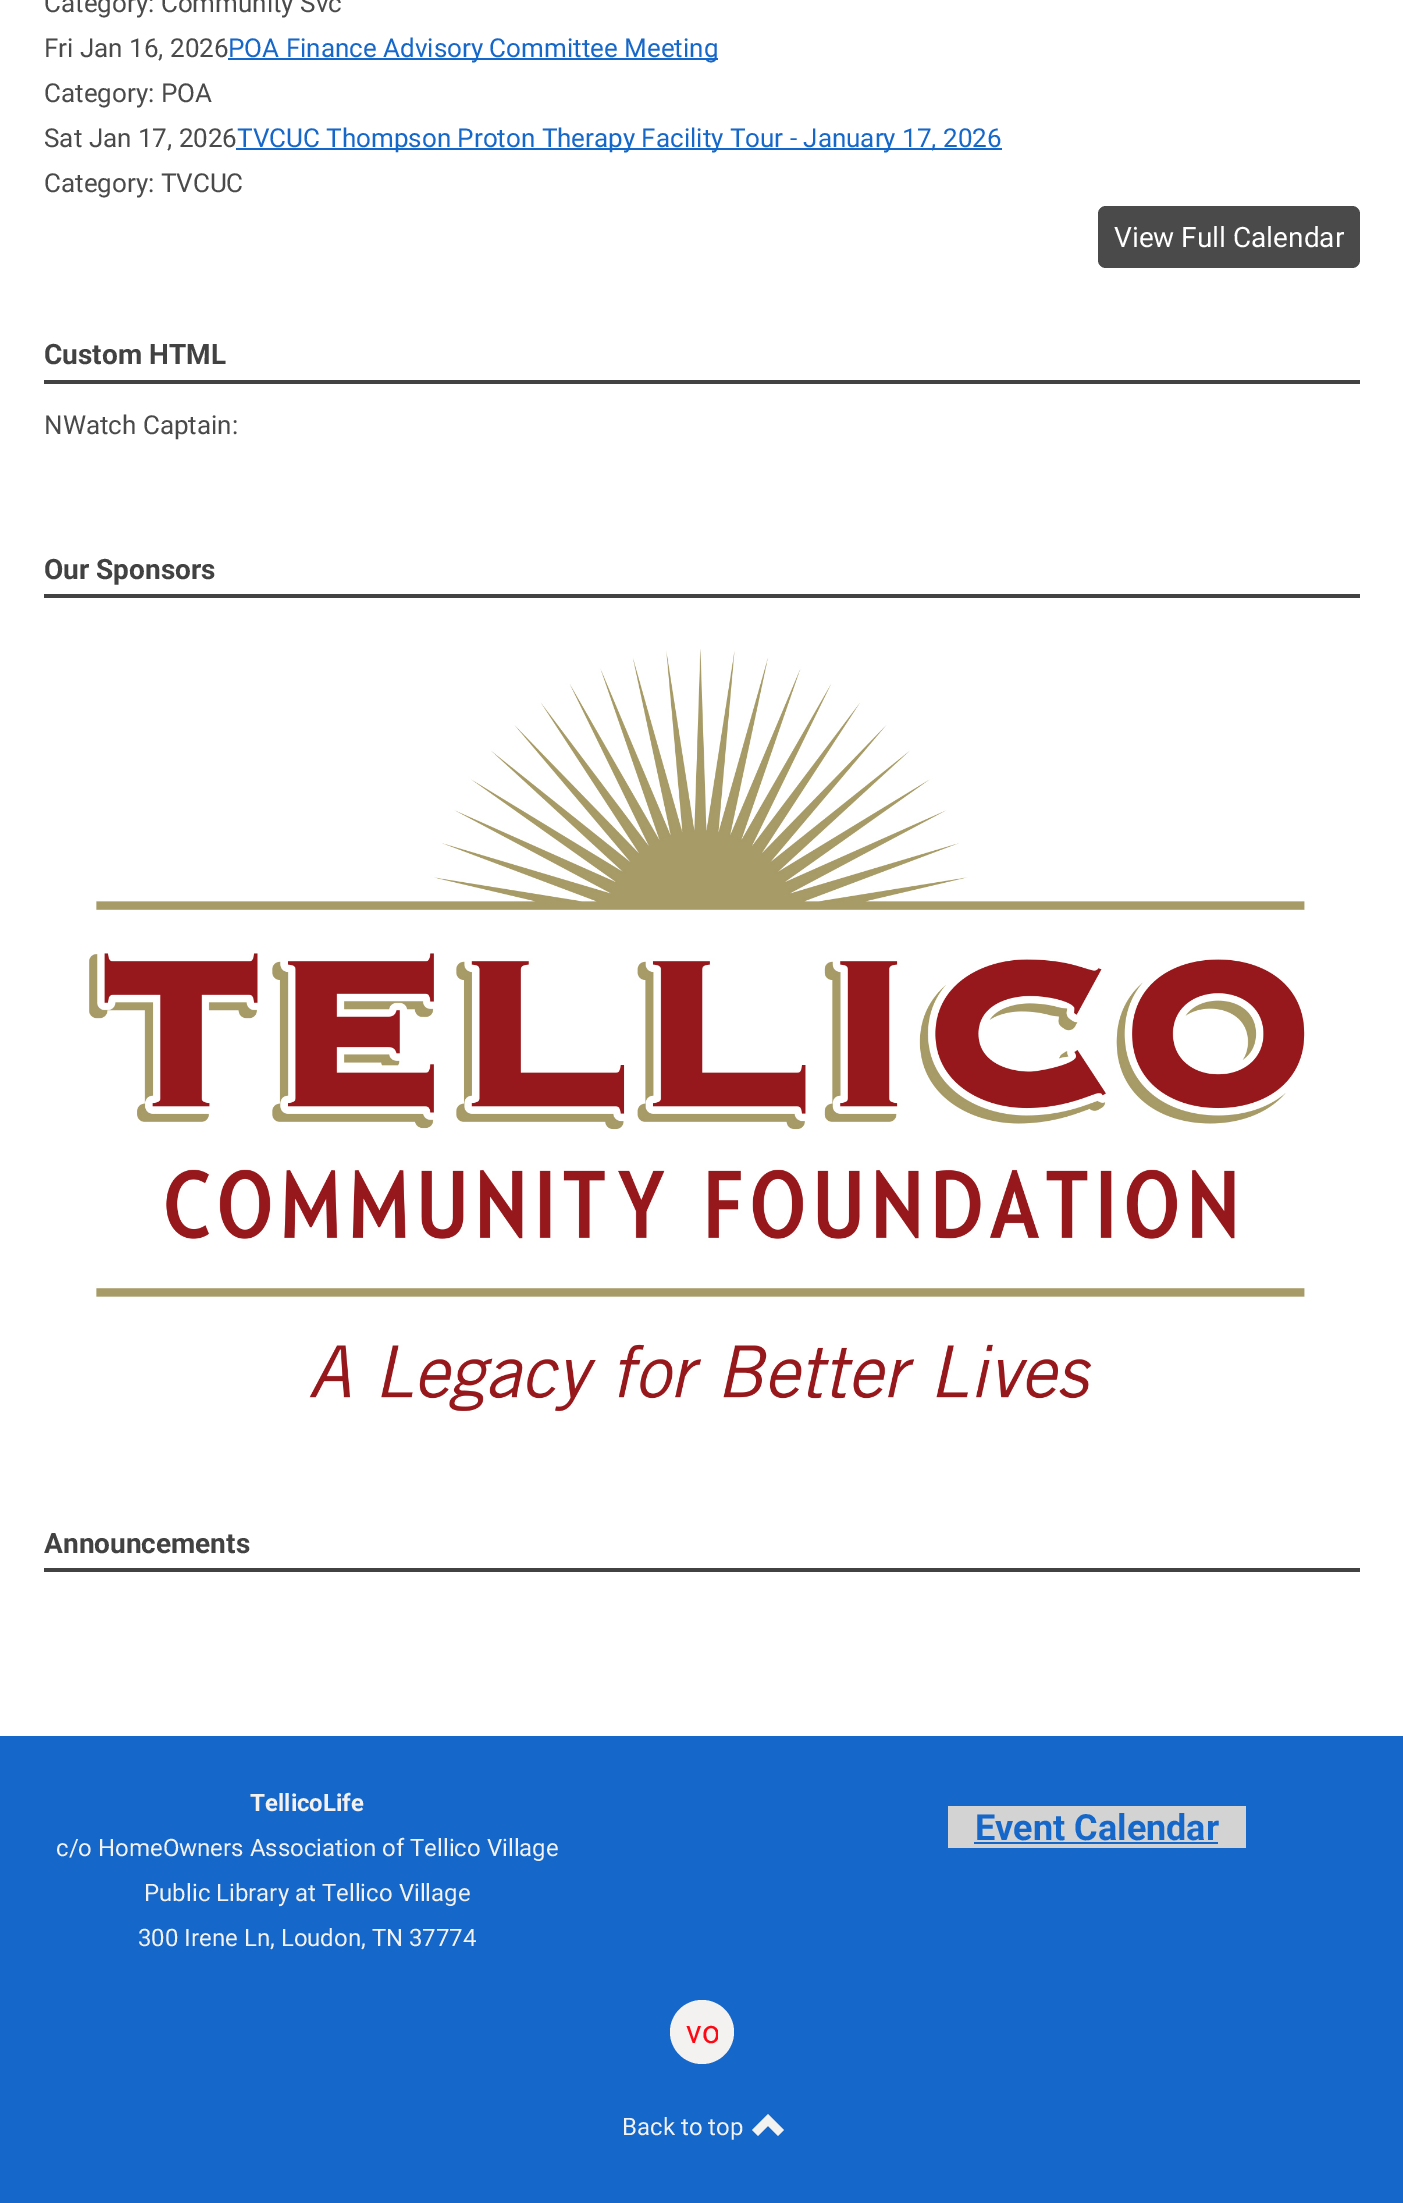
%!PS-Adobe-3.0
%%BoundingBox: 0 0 1403 2203
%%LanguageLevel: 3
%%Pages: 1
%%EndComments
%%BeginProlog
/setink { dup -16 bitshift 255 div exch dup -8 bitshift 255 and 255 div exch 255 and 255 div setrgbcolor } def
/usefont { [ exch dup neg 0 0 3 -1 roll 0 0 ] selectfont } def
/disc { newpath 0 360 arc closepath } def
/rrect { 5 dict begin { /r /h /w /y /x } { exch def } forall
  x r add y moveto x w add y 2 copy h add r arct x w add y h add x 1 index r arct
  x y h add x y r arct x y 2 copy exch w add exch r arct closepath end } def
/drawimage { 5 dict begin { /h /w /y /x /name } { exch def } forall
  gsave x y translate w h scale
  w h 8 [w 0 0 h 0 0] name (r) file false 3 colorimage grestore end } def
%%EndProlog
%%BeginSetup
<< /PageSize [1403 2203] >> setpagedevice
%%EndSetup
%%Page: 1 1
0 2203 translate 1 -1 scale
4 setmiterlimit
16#FFFFFF setink
0 0 1403 2203 rectfill
/Roboto-Regular 26 usefont
16#4A4A4A setink
44 12 moveto (Category: Community Svc) show
44 57 moveto (Fri Jan 16, 2026) show
16#1567CA setink
228 58 490 2 rectfill
228 57 moveto (POA Finance Advisory Committee Meeting) show
16#4A4A4A setink
44 102 moveto (Category: POA) show
44 147 moveto (Sat Jan 17, 2026) show
16#1567CA setink
236 148 766 2 rectfill
237 147 moveto (TVCUC Thompson Proton Therapy Facility Tour - January 17, 2026) show
16#4A4A4A setink
44 192 moveto (Category: TVCUC) show
1098 206 262 62 8 rrect fill
/Roboto-Regular 28 usefont
16#FFFFFF setink
1114 247 moveto (View Full Calendar) show
16#424242 setink
44 380 1316 4 rectfill
/Roboto-Bold 28 usefont
44 364 moveto (Custom HTML) show
/Roboto-Regular 26 usefont
16#4A4A4A setink
44 434 moveto (NWatch Captain:) show
16#424242 setink
44 594 1316 4 rectfill
/Roboto-Bold 28 usefont
44 579 moveto (Our Sponsors) show
(img1.raw) 89 649 1216 762 drawimage
44 1568 1316 4 rectfill
44 1553 moveto (Announcements) show
16#1567CA setink
0 1736 1403 467 rectfill
/Roboto-Bold 24 usefont
16#F4F2F1 setink
250 1811 moveto (TellicoLife) show
/Roboto-Regular 24 usefont
[
    [(c/o HomeOwners Association of Tellico Village) 56 1856]
    [(Public Library at Tellico Village) 144 1901]
    [(300 Irene Ln, Loudon, TN 37774) 138 1946]
] { aload pop moveto show } forall
16#D3D3D3 setink
948 1806 298 42 rectfill
/Roboto-Bold 36 usefont
16#1567CA setink
975 1840 moveto (Event Calendar) show
974 1842 244 2 rectfill
16#F4F2F1 setink
702 2032 32 disc fill
gsave
686 2016 32 32 rectclip
/Roboto-Regular 32 usefont
16#FE0814 setink
686 2043 moveto (vo) show
grestore
/Roboto-Regular 24 usefont
622 2135 moveto (Back to top) show
752 2130 moveto 758 2136 lineto 768 2126 lineto 778 2136 lineto 784 2130 lineto 768 2114 lineto closepath fill
showpage
%%EOF
